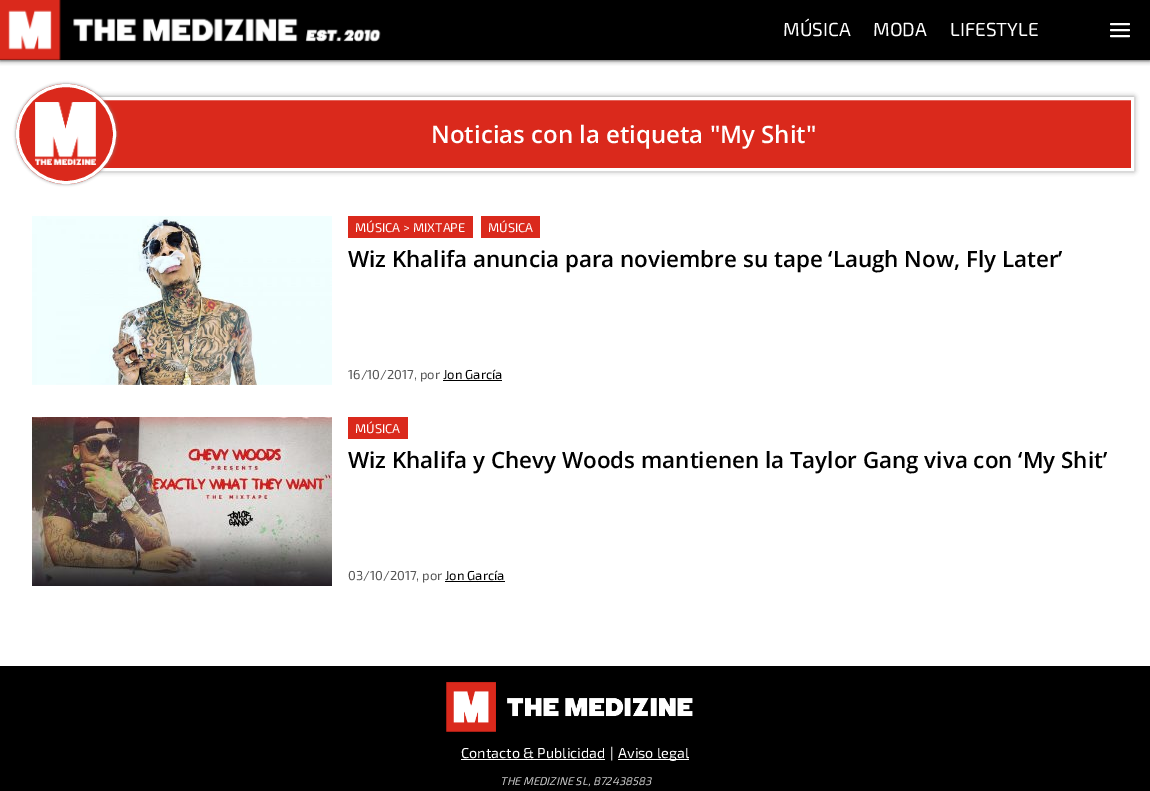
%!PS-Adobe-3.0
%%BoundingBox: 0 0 1150 791
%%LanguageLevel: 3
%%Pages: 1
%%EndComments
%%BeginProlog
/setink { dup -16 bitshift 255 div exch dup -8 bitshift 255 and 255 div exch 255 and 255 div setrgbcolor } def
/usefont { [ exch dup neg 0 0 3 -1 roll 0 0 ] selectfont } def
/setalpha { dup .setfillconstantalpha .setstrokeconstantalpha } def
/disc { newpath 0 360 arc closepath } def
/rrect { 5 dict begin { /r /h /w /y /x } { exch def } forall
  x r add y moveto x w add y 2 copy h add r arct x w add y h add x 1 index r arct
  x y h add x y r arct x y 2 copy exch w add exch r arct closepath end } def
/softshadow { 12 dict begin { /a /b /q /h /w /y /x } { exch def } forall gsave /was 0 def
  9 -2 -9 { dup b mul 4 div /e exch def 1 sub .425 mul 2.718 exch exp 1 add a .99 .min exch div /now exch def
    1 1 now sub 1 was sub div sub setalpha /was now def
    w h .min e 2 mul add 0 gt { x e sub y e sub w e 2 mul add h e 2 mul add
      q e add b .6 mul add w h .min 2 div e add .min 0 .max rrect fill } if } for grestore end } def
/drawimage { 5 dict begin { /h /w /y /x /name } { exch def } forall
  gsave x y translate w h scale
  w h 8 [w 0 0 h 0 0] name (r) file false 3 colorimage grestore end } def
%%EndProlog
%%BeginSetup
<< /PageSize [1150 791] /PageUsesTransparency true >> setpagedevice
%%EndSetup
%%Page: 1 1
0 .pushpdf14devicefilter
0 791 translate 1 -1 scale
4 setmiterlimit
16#FFFFFF setink
0 0 1150 791 rectfill
16#000000 setink
0 0 1150 60 0 2.5 0.9 softshadow
0 0 1150 60 rectfill
(img1.raw) 0 0 381 60 drawimage
/Exo2-Regular 19 usefont
16#FFFFFF setink
[
    [(MÚSICA) 783 36]
    [(MODA) 873 36]
    [(LIFESTYLE) 950 36]
] { aload pop moveto show } forall
2 setlinewidth
1 setlinecap
1 setlinejoin
1111 30 moveto 1129 30 lineto 1111 24 moveto 1129 24 lineto 1111 36 moveto 1129 36 lineto stroke
16#888888 setink
66 97 1068 74 0 2.5 1 softshadow
16#DA291C setink
102 100 1029 68 rectfill
16#FFFFFF setink
3 setlinewidth
0 setlinecap
0 setlinejoin
67.5 98.5 1065 71 rectstroke
16#888888 setink
16 84 100 100 50 1.5 1 softshadow
16#DA291C setink
66 134 50 disc fill
(img2.raw) 35 102 61 63 drawimage
16#FFFFFF setink
66 134 48.5 disc stroke
/OpenSans-SemiBold 24 usefont
431 143 moveto (Noticias con la etiqueta "My Shit") show
(img3.raw) 32 216 300 169 drawimage
16#DA291C setink
348 216 125 22 rectfill
/Exo2-Regular 12.75 usefont
16#FFFFFF setink
355 232 moveto (MÚSICA > MIXTAPE) show
16#DA291C setink
481 216 59 22 rectfill
16#FFFFFF setink
488 232 moveto (MÚSICA) show
/OpenSans-SemiBold 22.4 usefont
16#000000 setink
348 267 moveto (Wiz Khalifa anuncia para noviembre su tape ‘Laugh Now, Fly Later’) show
/Exo2-Regular 13 usefont
16#555555 setink
348 379 moveto (16/10/2017, por) show
16#000000 setink
443 379 moveto (Jon García) show
443 380 59 1 rectfill
(img4.raw) 32 417 300 169 drawimage
16#DA291C setink
348 417 60 22 rectfill
/Exo2-Regular 12.75 usefont
16#FFFFFF setink
355 433 moveto (MÚSICA) show
/OpenSans-SemiBold 22.4 usefont
16#000000 setink
348 468 moveto (Wiz Khalifa y Chevy Woods mantienen la Taylor Gang viva con ‘My Shit’) show
/Exo2-Regular 13 usefont
16#555555 setink
348 580 moveto (03/10/2017, por) show
16#000000 setink
445 580 moveto (Jon García) show
445 581 60 1 rectfill
0 666 1150 125 rectfill
(img5.raw) 446 681 247 51 drawimage
/Exo2-Regular 14.4 usefont
16#FFFFFF setink
461 758 moveto (Contacto & Publicidad) show
461 759 144 1 rectfill
610 758 moveto (|) show
618 759 71 1 rectfill
618 758 moveto (Aviso legal) show
/Exo2-Italic 11.25 usefont
16#CCCCCC setink
500 785 moveto (THE MEDIZINE SL, B72438583) show
.poppdf14devicefilter showpage
%%EOF
